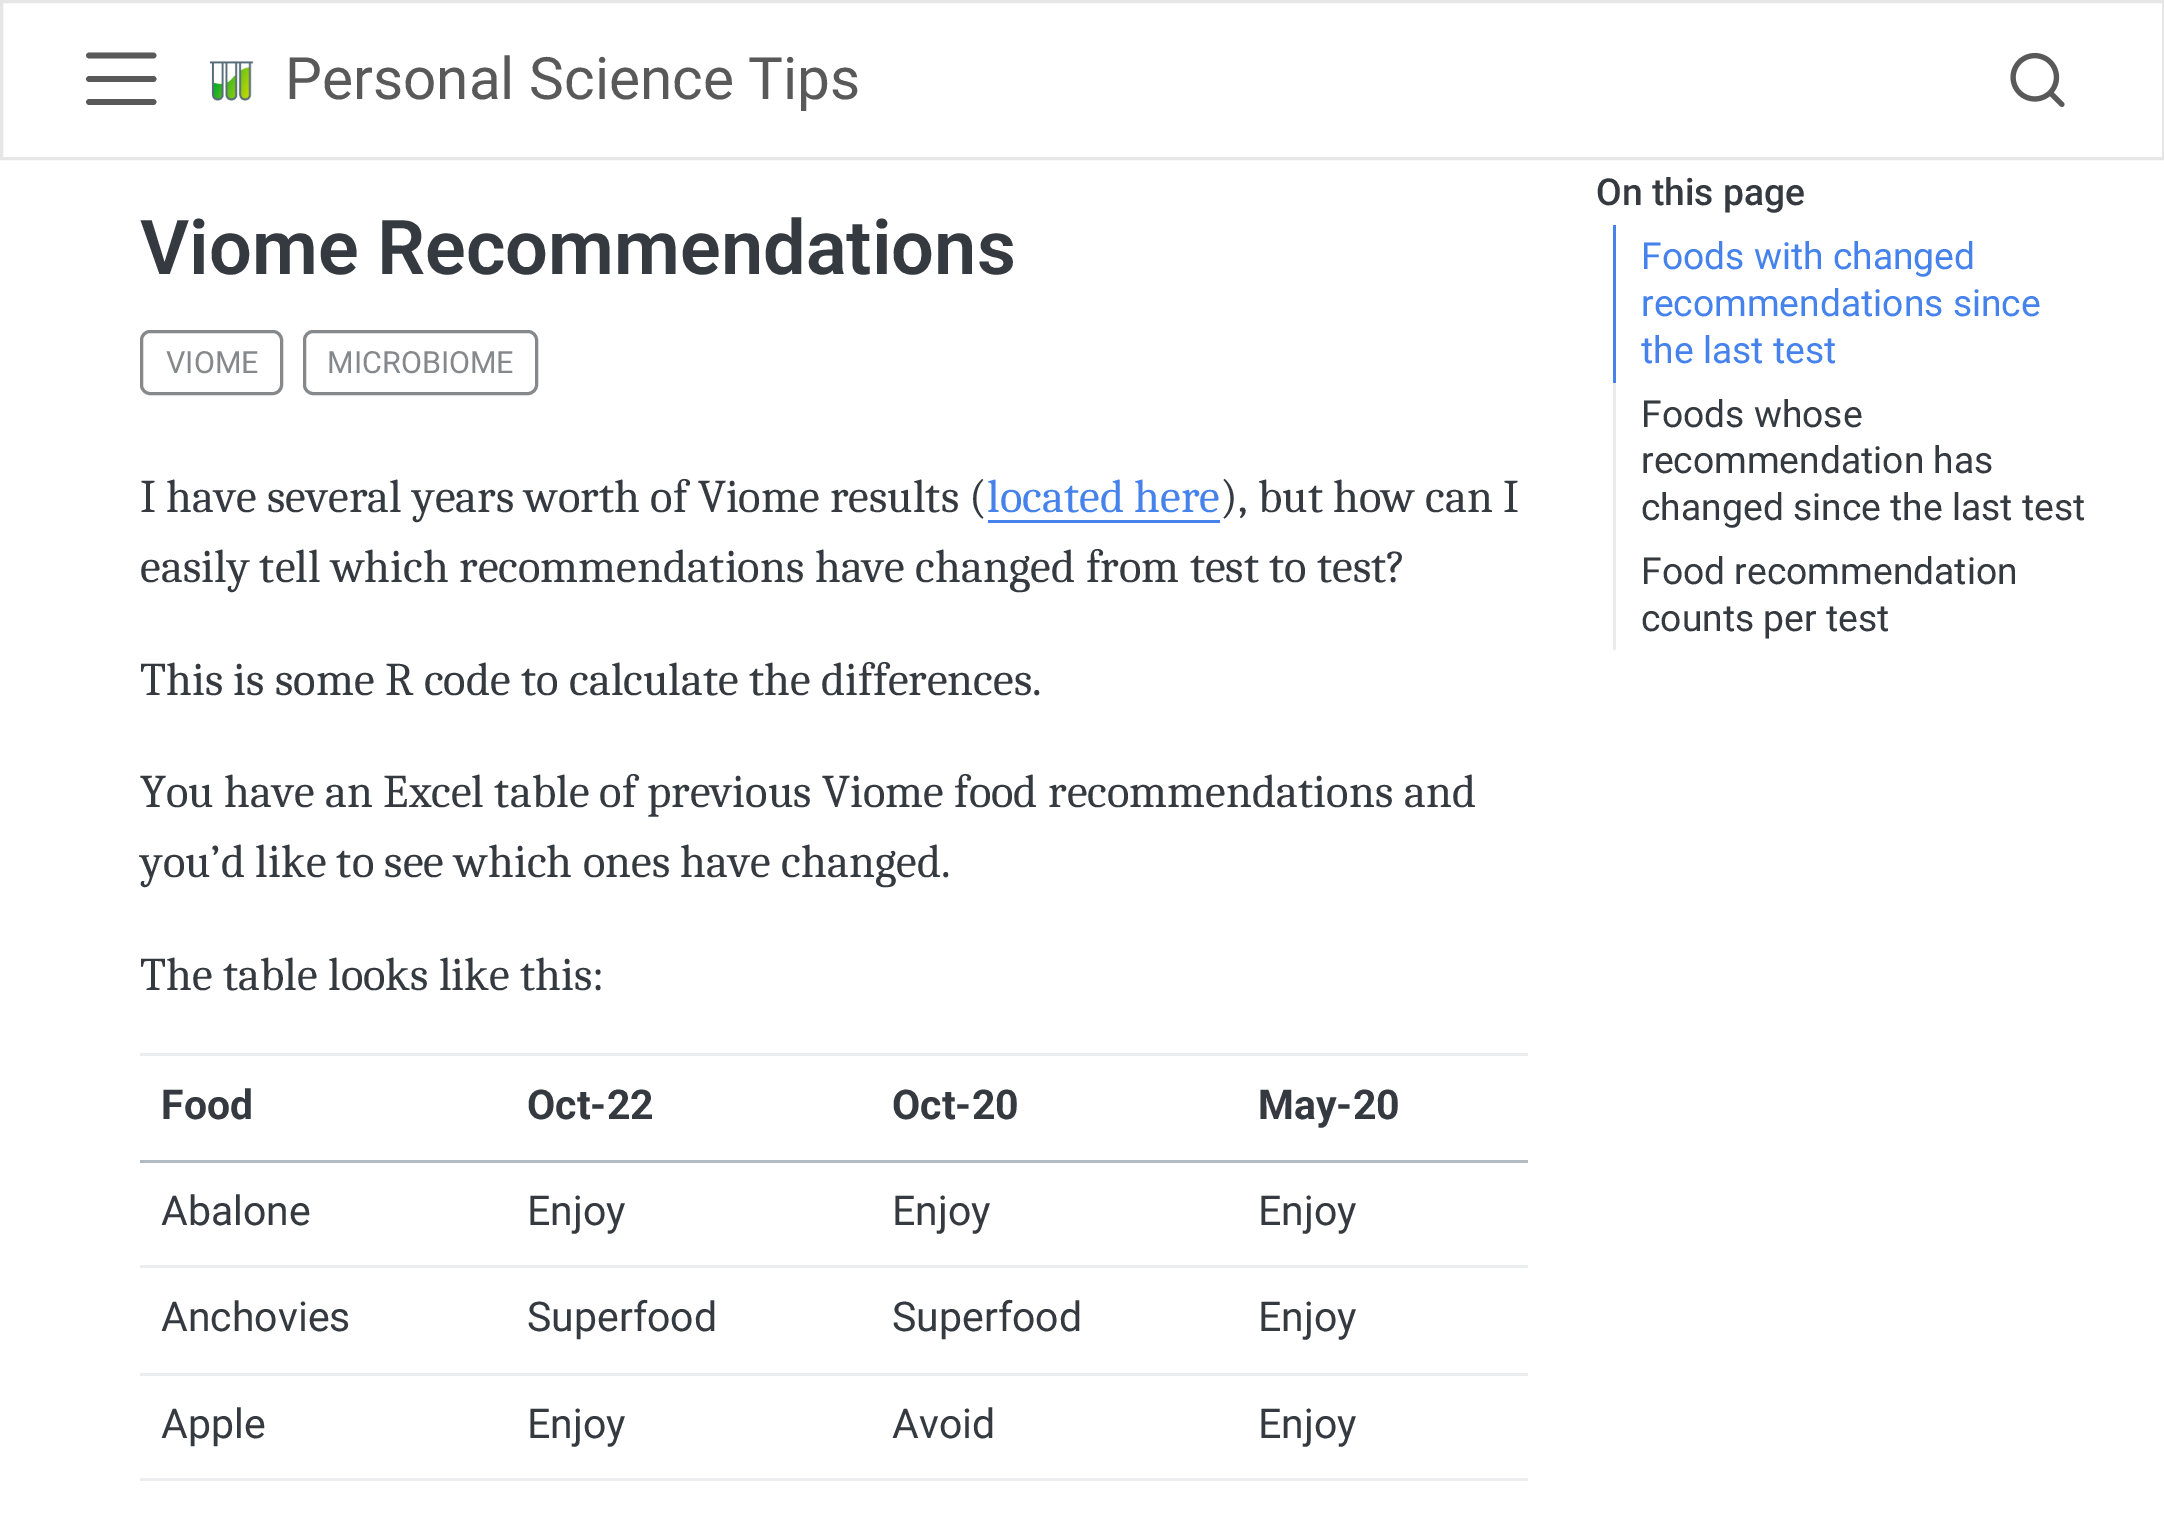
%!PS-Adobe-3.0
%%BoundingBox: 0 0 2164 1514
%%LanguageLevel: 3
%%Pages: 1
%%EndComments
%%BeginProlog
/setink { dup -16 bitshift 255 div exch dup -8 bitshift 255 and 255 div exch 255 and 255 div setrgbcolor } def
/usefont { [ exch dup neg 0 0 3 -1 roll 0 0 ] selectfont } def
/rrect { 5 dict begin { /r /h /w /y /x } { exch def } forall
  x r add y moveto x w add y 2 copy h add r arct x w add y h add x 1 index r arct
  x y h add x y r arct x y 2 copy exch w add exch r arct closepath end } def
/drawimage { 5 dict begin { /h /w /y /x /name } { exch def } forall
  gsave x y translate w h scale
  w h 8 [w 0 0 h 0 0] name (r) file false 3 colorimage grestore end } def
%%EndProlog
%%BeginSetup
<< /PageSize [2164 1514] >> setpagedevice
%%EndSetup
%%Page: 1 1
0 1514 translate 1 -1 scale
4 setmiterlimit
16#FFFFFF setink
0 0 2164 1514 rectfill
16#E6E6E6 setink
3 setlinewidth
1.5 1.5 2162 157 rectstroke
16#595959 setink
5.8 setlinewidth
1 setlinecap
89 55.5 moveto 153.5 55.5 lineto 89 79 moveto 153.5 79 lineto 89 102 moveto 153.5 102 lineto stroke
(img1.raw) 209 61 45 40 drawimage
/Roboto-Regular 58.5 usefont
285 99 moveto (Personal Science Tips) show
(img2.raw) 2010 52 55 55 drawimage
/Roboto-SemiBold 75.75 usefont
16#343A40 setink
140 274 moveto (Viome Recommendations) show
16#85898C setink
3 setlinewidth
0 setlinecap
141.5 331.5 140 62 8.5 rrect stroke
/Roboto-Regular 30.5 usefont
166 373 moveto (VIOME) show
304.5 331.5 232 62 8.5 rrect stroke
327 373 moveto (MICROBIOME) show
/Caladea-Regular 46.75 usefont
16#343A40 setink
140 512 moveto (I have several years worth of Viome results \() show
16#4582EC setink
987 512 moveto (located here) show
988 520 232 3 rectfill
16#343A40 setink
[
    [(\), but how can I) 1220 512]
    [(easily tell which recommendations have changed from test to test?) 140 582]
    [(This is some R code to calculate the differences.) 140 695]
    [(You have an Excel table of previous Viome food recommendations and) 140 807]
    [(you’d like to see which ones have changed.) 140 877]
    [(The table looks like this:) 140 990]
] { aload pop moveto show } forall
16#EBEDEE setink
140 1053 1388 3 rectfill
16#B2BAC1 setink
140 1160 1388 3 rectfill
/Roboto-Bold 41 usefont
16#343A40 setink
[
    [(Food) 161 1119]
    [(Oct-22) 527 1119]
    [(Oct-20) 892 1119]
    [(May-20) 1258 1119]
] { aload pop moveto show } forall
/Roboto-Regular 41 usefont
[
    [(Abalone) 161 1225]
    [(Enjoy) 527 1225]
    [(Enjoy) 892 1225]
] { aload pop moveto show } forall
16#EBEDEE setink
140 1265 1388 3 rectfill
16#343A40 setink
[
    [(Enjoy) 1258 1225]
    [(Anchovies) 161 1331]
    [(Superfood) 527 1331]
    [(Superfood) 892 1331]
] { aload pop moveto show } forall
16#EBEDEE setink
140 1373 1388 3 rectfill
16#343A40 setink
[
    [(Enjoy) 1258 1331]
    [(Apple) 161 1438]
    [(Enjoy) 527 1438]
    [(Avoid) 892 1438]
] { aload pop moveto show } forall
16#EBEDEE setink
140 1478 1388 3 rectfill
16#343A40 setink
1258 1438 moveto (Enjoy) show
/Roboto-Medium 37.25 usefont
1596 205 moveto (On this page) show
16#4582EC setink
1613 225 3 158 rectfill
/Roboto-Regular 37.25 usefont
[
    [(Foods with changed) 1641 269]
    [(recommendations since) 1641 316]
    [(the last test) 1641 363]
] { aload pop moveto show } forall
16#E9ECEF setink
1613 383 3 267 rectfill
16#343A40 setink
[
    [(Foods whose) 1641 427]
    [(recommendation has) 1641 473]
    [(changed since the last test) 1641 520]
    [(Food recommendation) 1641 584]
    [(counts per test) 1641 631]
] { aload pop moveto show } forall
showpage
%%EOF
